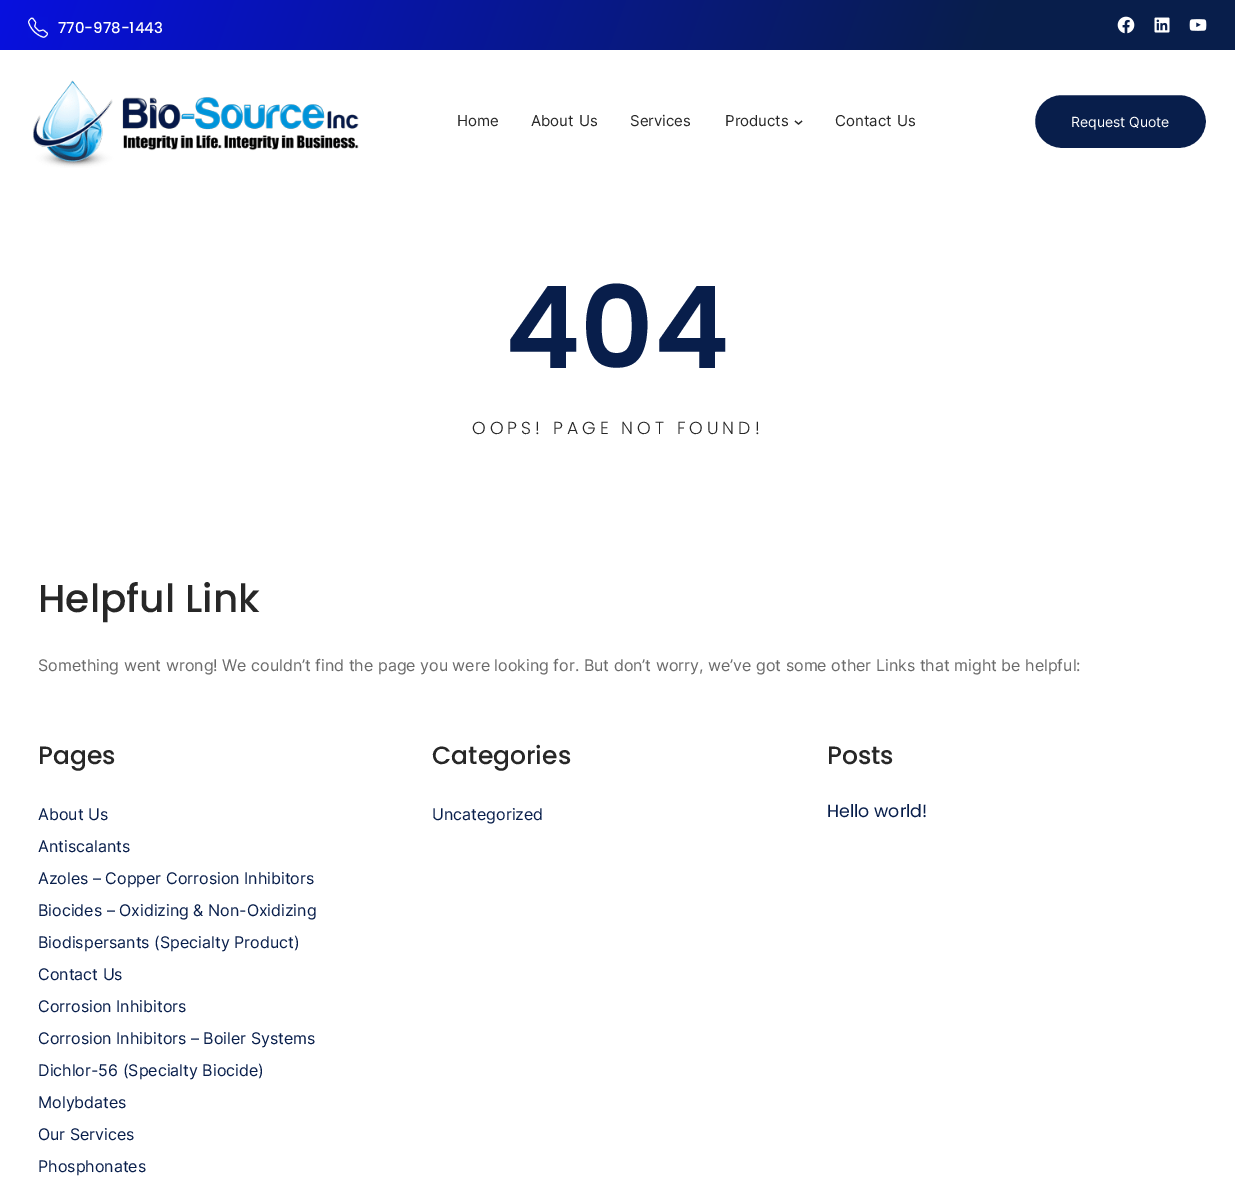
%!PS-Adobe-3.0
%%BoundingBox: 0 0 1235 1195
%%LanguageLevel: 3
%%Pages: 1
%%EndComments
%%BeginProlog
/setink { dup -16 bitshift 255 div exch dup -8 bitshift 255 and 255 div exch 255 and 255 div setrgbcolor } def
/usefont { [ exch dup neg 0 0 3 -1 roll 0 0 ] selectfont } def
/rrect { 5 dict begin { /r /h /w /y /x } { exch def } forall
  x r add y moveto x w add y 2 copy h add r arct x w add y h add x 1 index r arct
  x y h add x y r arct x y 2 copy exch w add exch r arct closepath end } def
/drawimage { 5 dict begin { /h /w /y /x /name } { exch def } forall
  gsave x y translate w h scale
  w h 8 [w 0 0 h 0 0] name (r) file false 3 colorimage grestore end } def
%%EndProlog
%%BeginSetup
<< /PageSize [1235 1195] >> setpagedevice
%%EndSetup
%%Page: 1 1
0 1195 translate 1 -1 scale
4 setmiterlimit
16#FFFFFF setink
0 0 1235 1195 rectfill
gsave 0 0 moveto 1235 0 lineto 1235 50 lineto 0 50 lineto closepath clip newpath
<< /ShadingType 2 /ColorSpace /DeviceRGB /Coords [1172 225 63 -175] /Extend [true true] /Function << /FunctionType 3 /Domain [0 1] /Functions [<< /FunctionType 2 /Domain [0 1] /C0 [0.031 0.118 0.294] /C1 [0.031 0.118 0.294] /N 1 >> << /FunctionType 2 /Domain [0 1] /C0 [0.031 0.118 0.294] /C1 [0.027 0.063 0.875] /N 1 >>] /Bounds [0.2] /Encode [0 1 0 1] >> >> shfill grestore
(img1.raw) 28 17 20 21 drawimage
/Poppins-Medium 15 usefont
58 33 moveto (770-978-1443) show
(img2.raw) 1117 16 18 18 drawimage
(img3.raw) 1154 17 16 16 drawimage
(img4.raw) 1189 19 18 12 drawimage
(img5.raw) 33 80 326 88 drawimage
/Inter-Regular 15 usefont
16#272727 setink
457 126 moveto (Home) show
531 126 moveto 1 0 32 (About Us) widthshow
630 126 moveto (Services) show
725 126 moveto (Products) show
1.1 setlinewidth
795 121 moveto 798.5 124 lineto 802 121 lineto stroke
835 126 moveto 1 0 32 (Contact Us) widthshow
16#081E4B setink
1034 94 173 55 27.5 rrect gsave fill grestore
16#FFFFFF setink
2 setlinewidth
stroke
/Inter-Regular 14 usefont
1071 127 moveto (Request Quote) show
/Poppins-SemiBold 114 usefont
16#081E4B setink
505 368 moveto (404) show
/Poppins-Light 17.4 usefont
16#272727 setink
472 434 moveto 4 0 (OOPS! PAGE NOT FOUND!) ashow
/Poppins-Medium 39 usefont
38 612 moveto (Helpful Link) show
/Inter-Regular 16 usefont
16#6A6A6A setink
38 671 moveto (Something went wrong! We couldn’t find the page you were looking for. But don’t worry, we’ve got some other Links that might be helpful:) show
/Poppins-Medium 25 usefont
16#272727 setink
38 764 moveto (Pages) show
/Inter-Regular 16 usefont
16#081E4B setink
[
    [(About Us) 38 820]
    [(Antiscalants) 38 852]
    [(Azoles – Copper Corrosion Inhibitors) 38 884]
    [(Biocides – Oxidizing & Non-Oxidizing) 38 916]
    [(Biodispersants \(Specialty Product\)) 38 948]
    [(Contact Us) 38 980]
    [(Corrosion Inhibitors) 38 1012]
    [(Corrosion Inhibitors – Boiler Systems) 38 1044]
    [(Dichlor-56 \(Specialty Biocide\)) 38 1076]
    [(Molybdates) 38 1108]
    [(Our Services) 38 1140]
    [(Phosphonates) 38 1172]
] { aload pop moveto show } forall
/Poppins-Medium 25 usefont
16#272727 setink
432 764 moveto (Categories) show
/Inter-Regular 16 usefont
16#081E4B setink
432 820 moveto (Uncategorized) show
/Poppins-Medium 25 usefont
16#272727 setink
827 764 moveto (Posts) show
/Poppins-Regular 17.4 usefont
16#081E4B setink
827 817 moveto (Hello world!) show
showpage
%%EOF
